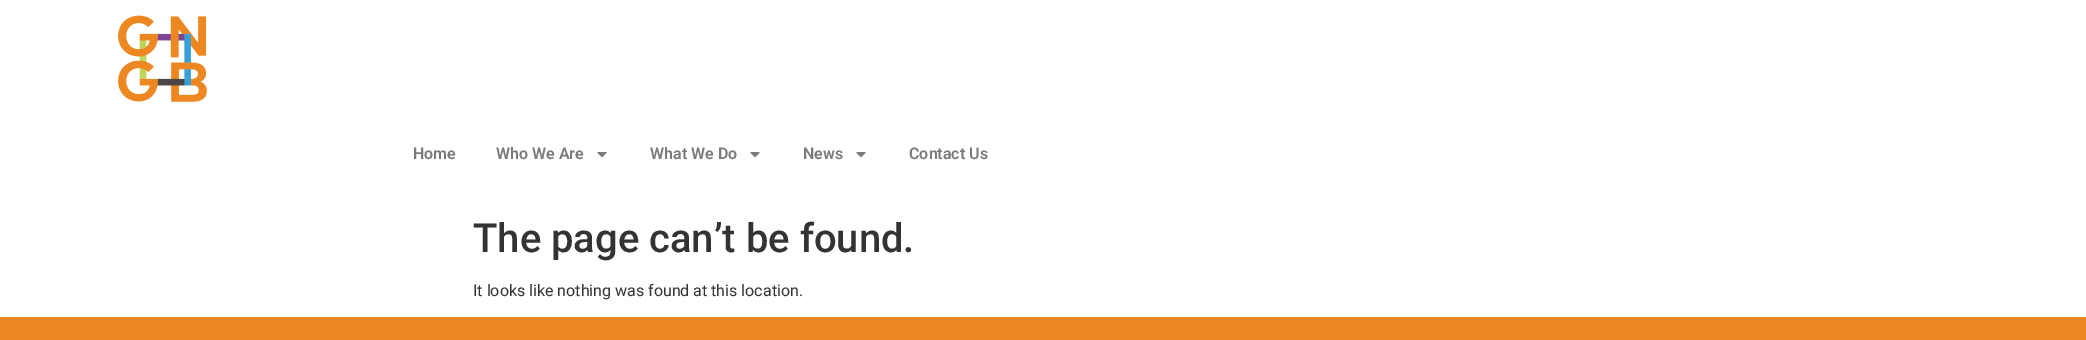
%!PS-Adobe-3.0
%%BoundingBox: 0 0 2086 340
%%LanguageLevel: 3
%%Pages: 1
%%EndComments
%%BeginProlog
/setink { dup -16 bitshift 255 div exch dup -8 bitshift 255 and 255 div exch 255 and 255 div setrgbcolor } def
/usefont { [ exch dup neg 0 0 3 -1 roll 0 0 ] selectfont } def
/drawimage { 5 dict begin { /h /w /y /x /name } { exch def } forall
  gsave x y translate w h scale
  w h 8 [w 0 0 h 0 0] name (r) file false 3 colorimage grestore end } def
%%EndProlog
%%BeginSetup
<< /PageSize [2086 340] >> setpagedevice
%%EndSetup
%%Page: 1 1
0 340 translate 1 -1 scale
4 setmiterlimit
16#FFFFFF setink
0 0 2086 340 rectfill
(img1.raw) 118 15 89 87 drawimage
/Roboto-SemiBold 16 usefont
16#7A7A7A setink
413 159 moveto (Home) show
496 159 moveto (Who We Are) show
(img2.raw) 597 152 10 6 drawimage
650 159 moveto (What We Do) show
(img2.raw) 750 152 10 6 drawimage
803 159 moveto (News) show
(img2.raw) 856 152 10 6 drawimage
909 159 moveto (Contact Us) show
/Roboto-Medium 40 usefont
16#333333 setink
473 252 moveto (The page can’t be found.) show
/Roboto-Regular 16 usefont
473 296 moveto (It looks like nothing was found at this location.) show
16#ED8722 setink
0 317 2086 23 rectfill
showpage
%%EOF
